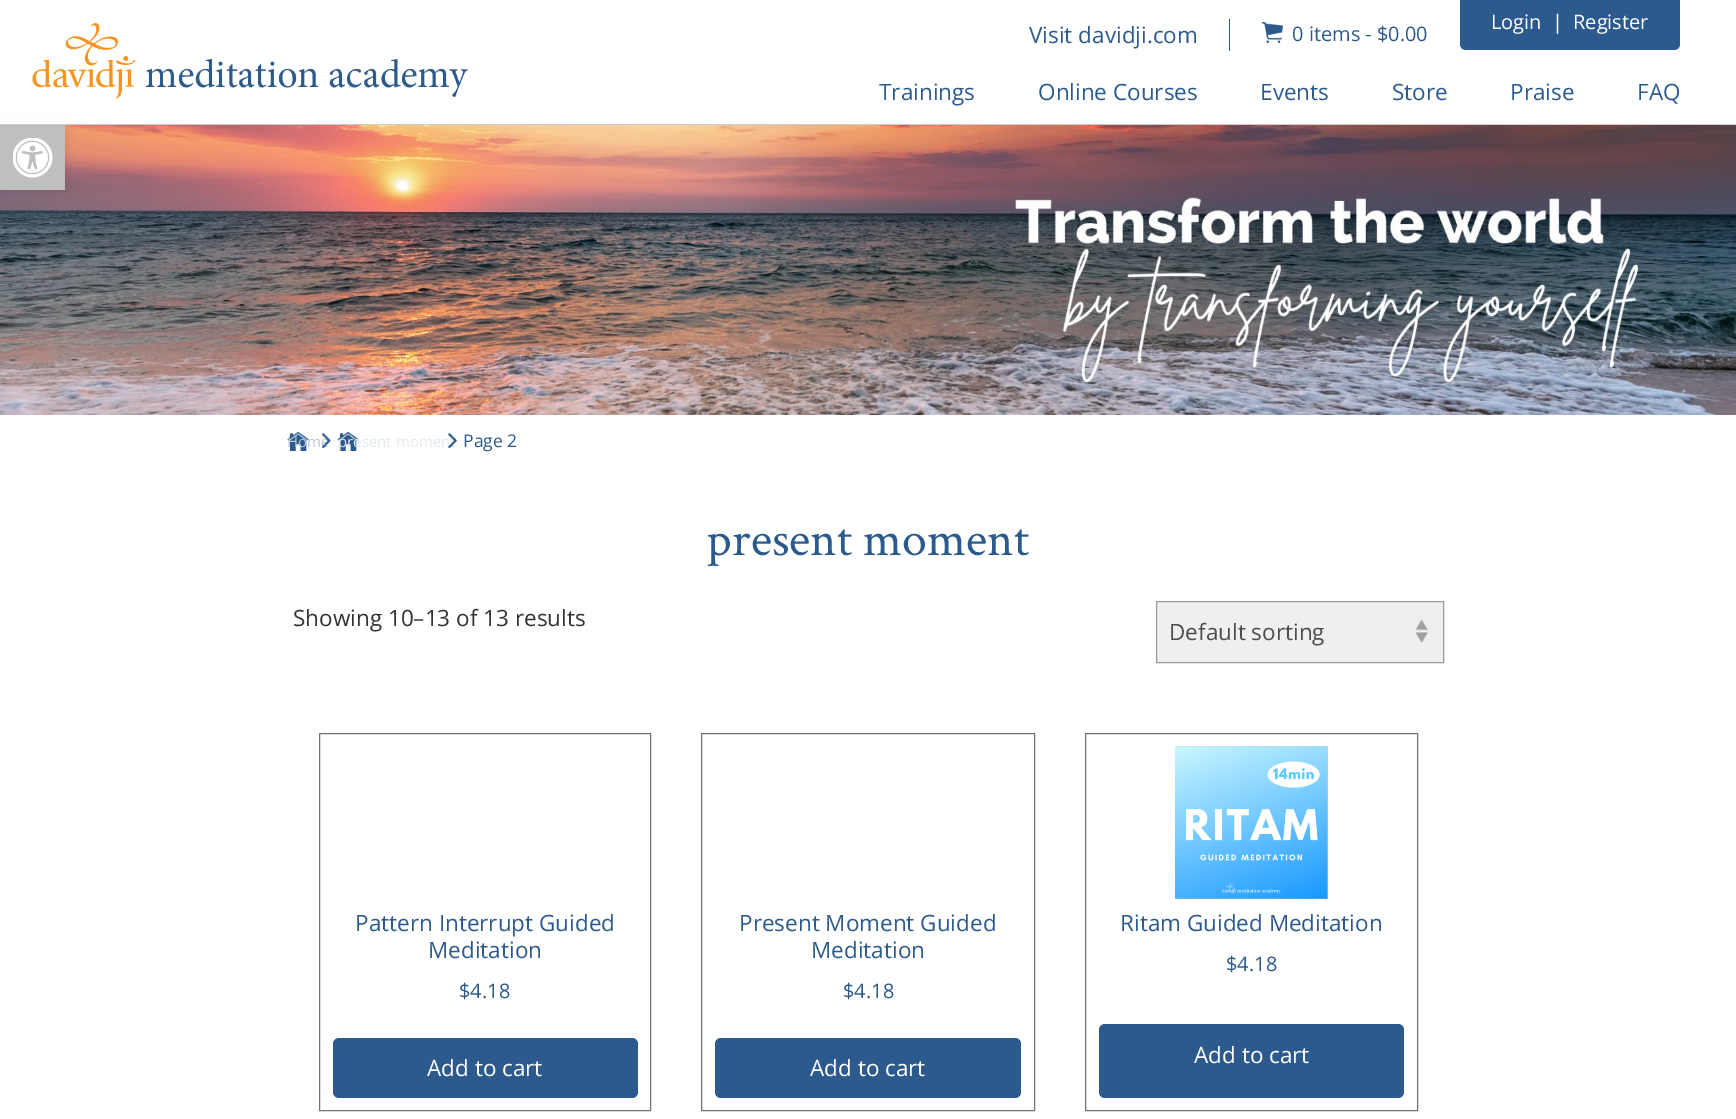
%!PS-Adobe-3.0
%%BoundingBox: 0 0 1736 1119
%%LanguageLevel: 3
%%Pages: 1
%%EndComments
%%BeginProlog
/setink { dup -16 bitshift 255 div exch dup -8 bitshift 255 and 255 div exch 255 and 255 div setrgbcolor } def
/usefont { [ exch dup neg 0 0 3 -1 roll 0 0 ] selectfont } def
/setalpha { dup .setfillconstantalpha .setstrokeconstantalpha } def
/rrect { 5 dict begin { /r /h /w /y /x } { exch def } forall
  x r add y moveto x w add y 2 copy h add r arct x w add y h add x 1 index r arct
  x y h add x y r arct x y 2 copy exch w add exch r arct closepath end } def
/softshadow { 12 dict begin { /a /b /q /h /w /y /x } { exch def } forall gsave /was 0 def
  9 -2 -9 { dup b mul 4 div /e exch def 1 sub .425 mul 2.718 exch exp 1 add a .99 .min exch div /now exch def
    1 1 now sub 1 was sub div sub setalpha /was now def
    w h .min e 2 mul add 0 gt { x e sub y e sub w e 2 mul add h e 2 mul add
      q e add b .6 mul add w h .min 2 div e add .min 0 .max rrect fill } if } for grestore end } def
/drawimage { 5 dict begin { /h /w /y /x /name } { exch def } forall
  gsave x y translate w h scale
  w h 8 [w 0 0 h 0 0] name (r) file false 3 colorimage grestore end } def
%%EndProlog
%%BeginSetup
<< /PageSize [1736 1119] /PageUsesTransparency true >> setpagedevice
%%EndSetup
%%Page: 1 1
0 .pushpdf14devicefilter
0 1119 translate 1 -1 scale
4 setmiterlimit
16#FFFFFF setink
0 0 1736 1119 rectfill
(img4.raw) 0 125 1736 290 drawimage
16#000000 setink
0 125 65 65 0 6 0.1 softshadow
16#BFBFBF setink
0 125 65 65 rectfill
(img1.raw) 13 138 40 40 drawimage
16#FFFFFF setink
0 117 69 7 rectfill
16#CCCCCC setink
0 124 1736 1 rectfill
(img2.raw) 32 23 436 76 drawimage
16#2C5A8C setink
1229 19 1 32 rectfill
/OpenSans-Regular 22.5 usefont
1029 43 moveto (Visit davidji.com) show
(img3.raw) 1262 22 21 21 drawimage
/OpenSans-Regular 20 usefont
1292 41 moveto (0 items - $0.00) show
1460 0 moveto 1680 0 lineto 1680 44 lineto 1680 47.5 1677.5 50 1674 50 curveto 1466 50 lineto 1462.5 50 1460 47.5 1460 44 curveto closepath fill
16#FFFFFF setink
[
    [(Login) 1491 29]
    [(|) 1552 29]
    [(Register) 1573 29]
] { aload pop moveto show } forall
/OpenSans-Regular 22.5 usefont
16#2C5A8C setink
[
    [(Trainings) 879 100]
    [(Online Courses) 1038 100]
    [(Events) 1260 100]
    [(Store) 1392 100]
    [(Praise) 1510 100]
    [(FAQ) 1637 100]
] { aload pop moveto show } forall
(img5.raw) 287 432 22 19 drawimage
/OpenSans-Regular 15 usefont
16#B5C5D6 setink
287 447 moveto (Home) show
(img6.raw) 322 433 9 15 drawimage
(img5.raw) 337 432 22 19 drawimage
16#E2E8EF setink
338 447 moveto (present moment) show
(img7.raw) 448 433 9 15 drawimage
/OpenSans-Regular 17.5 usefont
16#2C5A8C setink
463 447 moveto (Page 2) show
/CrimsonText-Regular 50 usefont
707 555 moveto (present moment) show
/OpenSans-Regular 22.5 usefont
16#333333 setink
293 626 moveto (Showing 10–13 of 13 results) show
16#EFEFEF setink
1157 602 286 60 rectfill
(img8.raw) 1415 619 13 24 drawimage
16#999999 setink
1156.5 601.5 287 61 rectstroke
16#4D4D4D setink
1169 640 moveto (Default sorting) show
16#747474 setink
319.5 733.5 331 377 rectstroke
16#2C5A8C setink
355 931 moveto (Pattern Interrupt Guided) show
428 958 moveto (Meditation) show
/OpenSans-Regular 20 usefont
459 998 moveto ($4.18) show
333 1038 305 60 6 rrect fill
/OpenSans-Regular 22.5 usefont
16#FFFFFF setink
427 1076 moveto (Add to cart) show
16#747474 setink
701.5 733.5 333 377 rectstroke
16#2C5A8C setink
739 931 moveto (Present Moment Guided) show
811 958 moveto (Meditation) show
/OpenSans-Regular 20 usefont
843 998 moveto ($4.18) show
715 1038 306 60 6 rrect fill
/OpenSans-Regular 22.5 usefont
16#FFFFFF setink
810 1076 moveto (Add to cart) show
16#747474 setink
1085.5 733.5 332 377 rectstroke
16#CCCCCC setink
1175 746 153 153 rectfill
(img9.raw) 1175 746 153 153 drawimage
16#2C5A8C setink
1120 931 moveto (Ritam Guided Meditation) show
/OpenSans-Regular 20 usefont
1226 971 moveto ($4.18) show
1099 1024 305 74 6 rrect fill
/OpenSans-Regular 22.5 usefont
16#FFFFFF setink
1194 1063 moveto (Add to cart) show
.poppdf14devicefilter showpage
%%EOF
